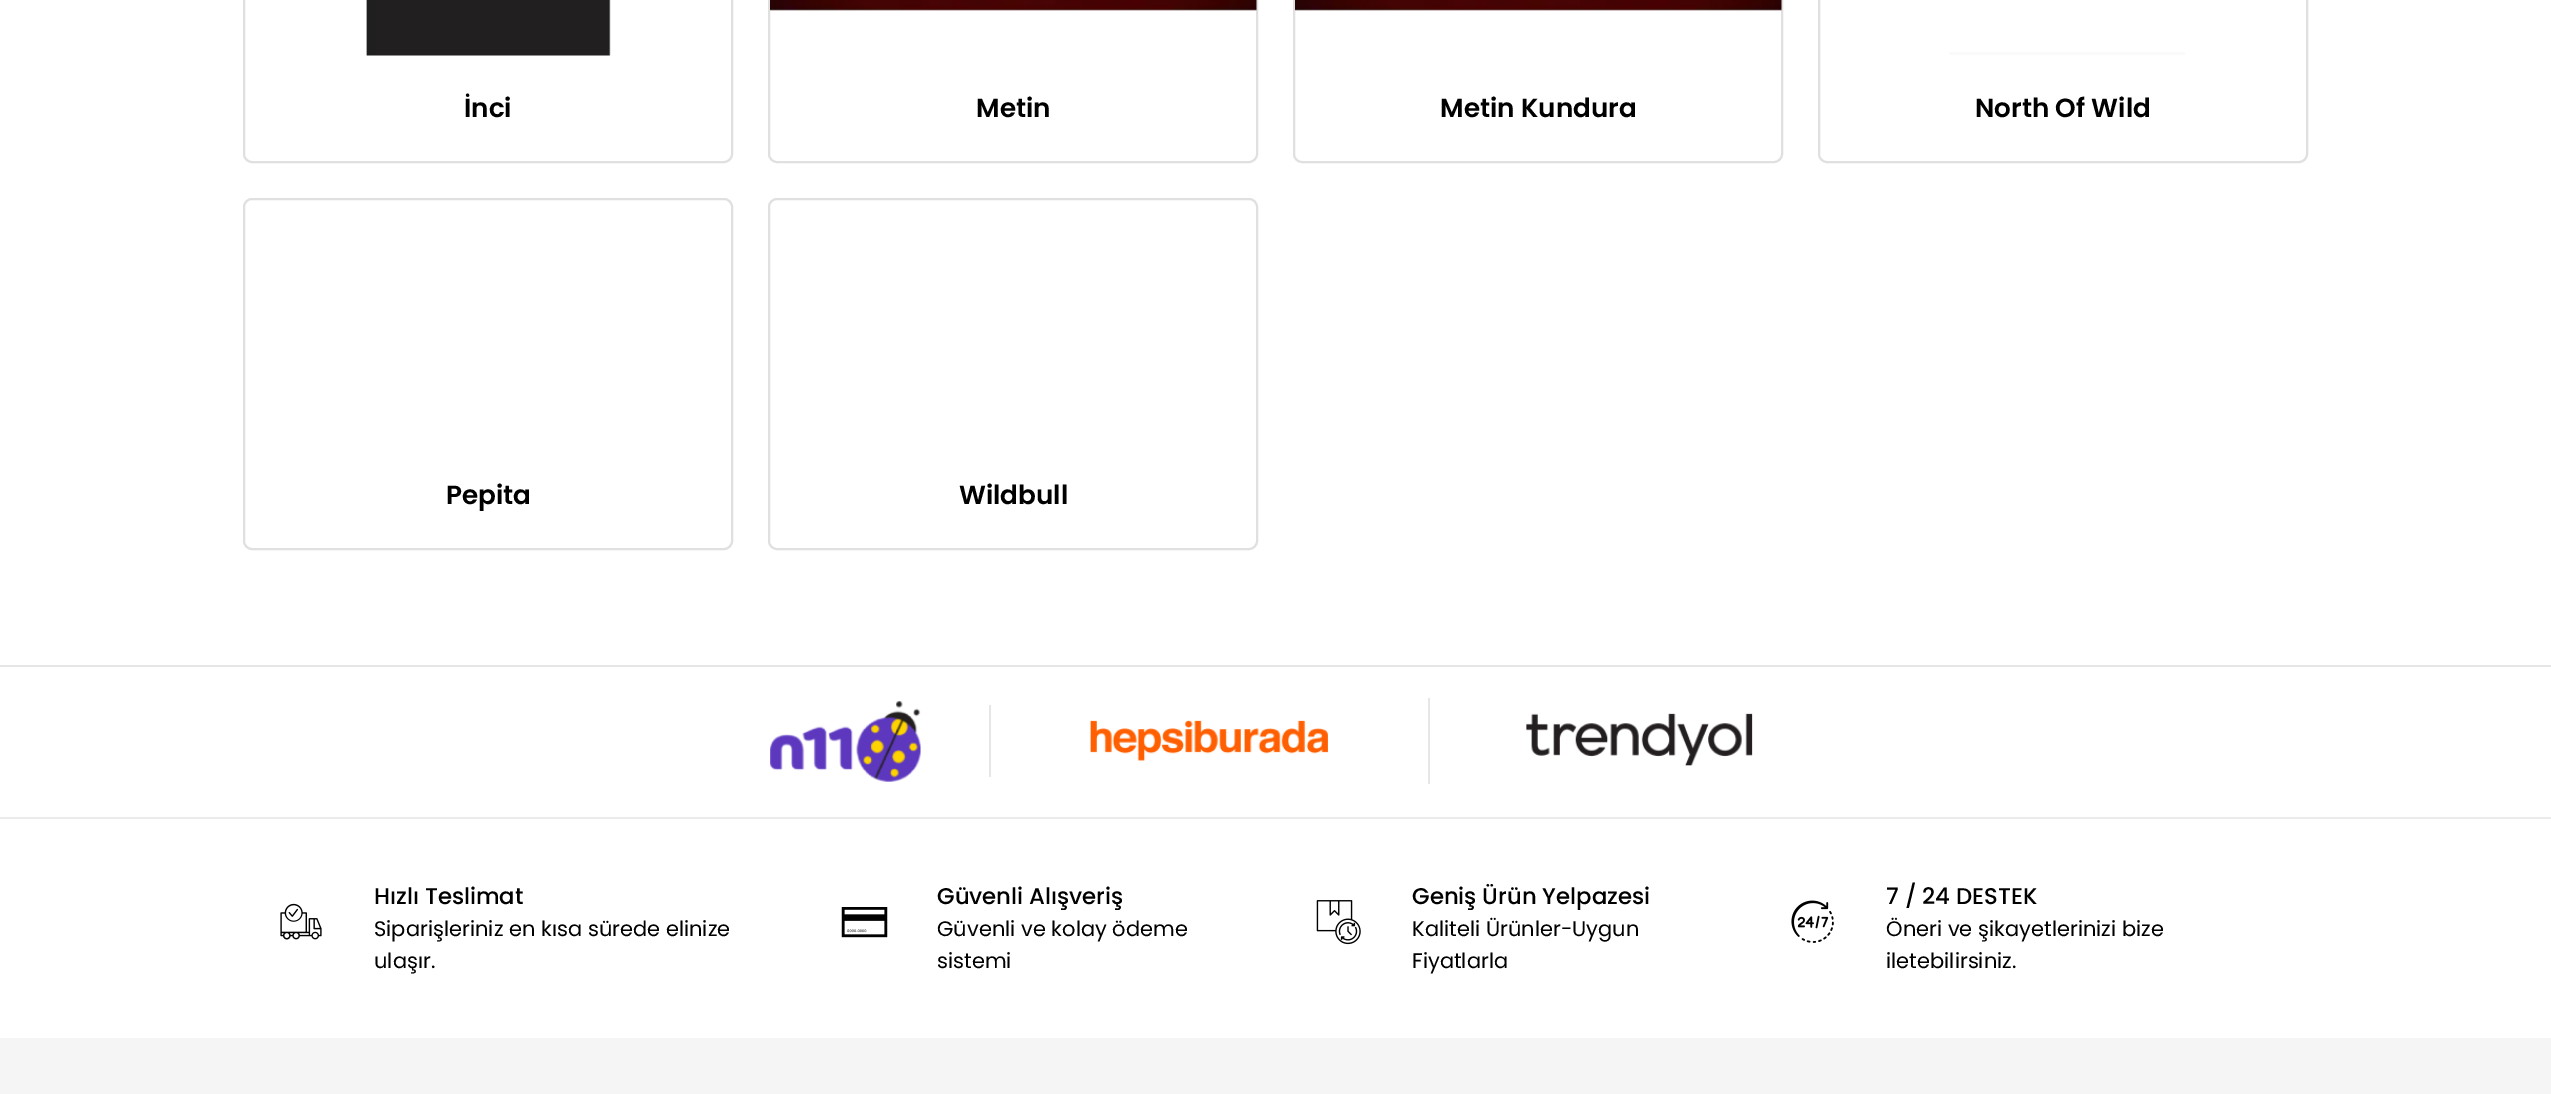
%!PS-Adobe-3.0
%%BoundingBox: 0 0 2551 1094
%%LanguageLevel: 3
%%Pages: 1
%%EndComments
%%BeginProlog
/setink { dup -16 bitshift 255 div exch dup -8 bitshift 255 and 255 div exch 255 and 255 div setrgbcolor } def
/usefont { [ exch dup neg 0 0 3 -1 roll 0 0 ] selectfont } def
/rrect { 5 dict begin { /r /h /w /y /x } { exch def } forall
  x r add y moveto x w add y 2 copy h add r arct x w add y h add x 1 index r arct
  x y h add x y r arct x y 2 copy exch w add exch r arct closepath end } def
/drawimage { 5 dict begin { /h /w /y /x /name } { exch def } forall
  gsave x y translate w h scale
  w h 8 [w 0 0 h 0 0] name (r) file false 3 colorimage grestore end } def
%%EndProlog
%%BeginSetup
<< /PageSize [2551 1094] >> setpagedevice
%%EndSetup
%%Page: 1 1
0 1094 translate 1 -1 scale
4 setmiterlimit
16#FFFFFF setink
0 0 2551 1094 rectfill
16#E0E0E0 setink
2 setlinewidth
244 -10 488 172 8 rrect stroke
(img1.raw) 366 0 245 56 drawimage
/Poppins-SemiBold 26.25 usefont
16#000000 setink
464 117 moveto (İnci) show
16#E0E0E0 setink
769 -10 488 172 8 rrect stroke
(img2.raw) 770 0 487 11 drawimage
16#000000 setink
976 117 moveto (Metin) show
16#E0E0E0 setink
1294 -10 488 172 8 rrect stroke
(img2.raw) 1295 0 487 11 drawimage
16#000000 setink
1440 117 moveto (Metin Kundura) show
16#E0E0E0 setink
1819 -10 488 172 8 rrect stroke
16#FAFAFA setink
1949 52 236 3 rectfill
16#000000 setink
1975 117 moveto (North Of Wild) show
16#E0E0E0 setink
244 199 488 350 8 rrect stroke
16#000000 setink
446 504 moveto (Pepita) show
16#E0E0E0 setink
769 199 488 350 8 rrect stroke
16#000000 setink
959 504 moveto (Wildbull) show
16#E6E6E6 setink
0 665 2551 2 rectfill
(img3.raw) 770 701 151 81 drawimage
989 705 2 72 rectfill
(img4.raw) 1090 720 238 41 drawimage
1428 698 2 86 rectfill
(img5.raw) 1526 713 227 53 drawimage
16#EBEBEB setink
0 817 2551 2 rectfill
(img6.raw) 280 903 42 37 drawimage
/Poppins-Medium 22.75 usefont
16#000000 setink
374 904 moveto (Hızlı Teslimat) show
/Poppins-Regular 21 usefont
374 936 moveto (Siparişleriniz en kısa sürede elinize) show
374 968 moveto (ulaşır.) show
(img7.raw) 841 907 47 31 drawimage
/Poppins-Medium 22.75 usefont
937 904 moveto (Güvenli Alışveriş) show
/Poppins-Regular 21 usefont
937 936 moveto (Güvenli ve kolay ödeme) show
937 968 moveto (sistemi) show
(img8.raw) 1316 900 45 45 drawimage
/Poppins-Medium 22.75 usefont
1412 904 moveto (Geniş Ürün Yelpazesi) show
/Poppins-Regular 21 usefont
1412 936 moveto (Kaliteli Ürünler-Uygun) show
1412 968 moveto (Fiyatlarla) show
(img9.raw) 1791 900 43 43 drawimage
/Poppins-Medium 22.75 usefont
1886 904 moveto (7 / 24 DESTEK) show
/Poppins-Regular 21 usefont
1886 936 moveto (Öneri ve şikayetlerinizi bize) show
1886 968 moveto (iletebilirsiniz.) show
16#F5F5F5 setink
0 1038 2551 56 rectfill
showpage
%%EOF
